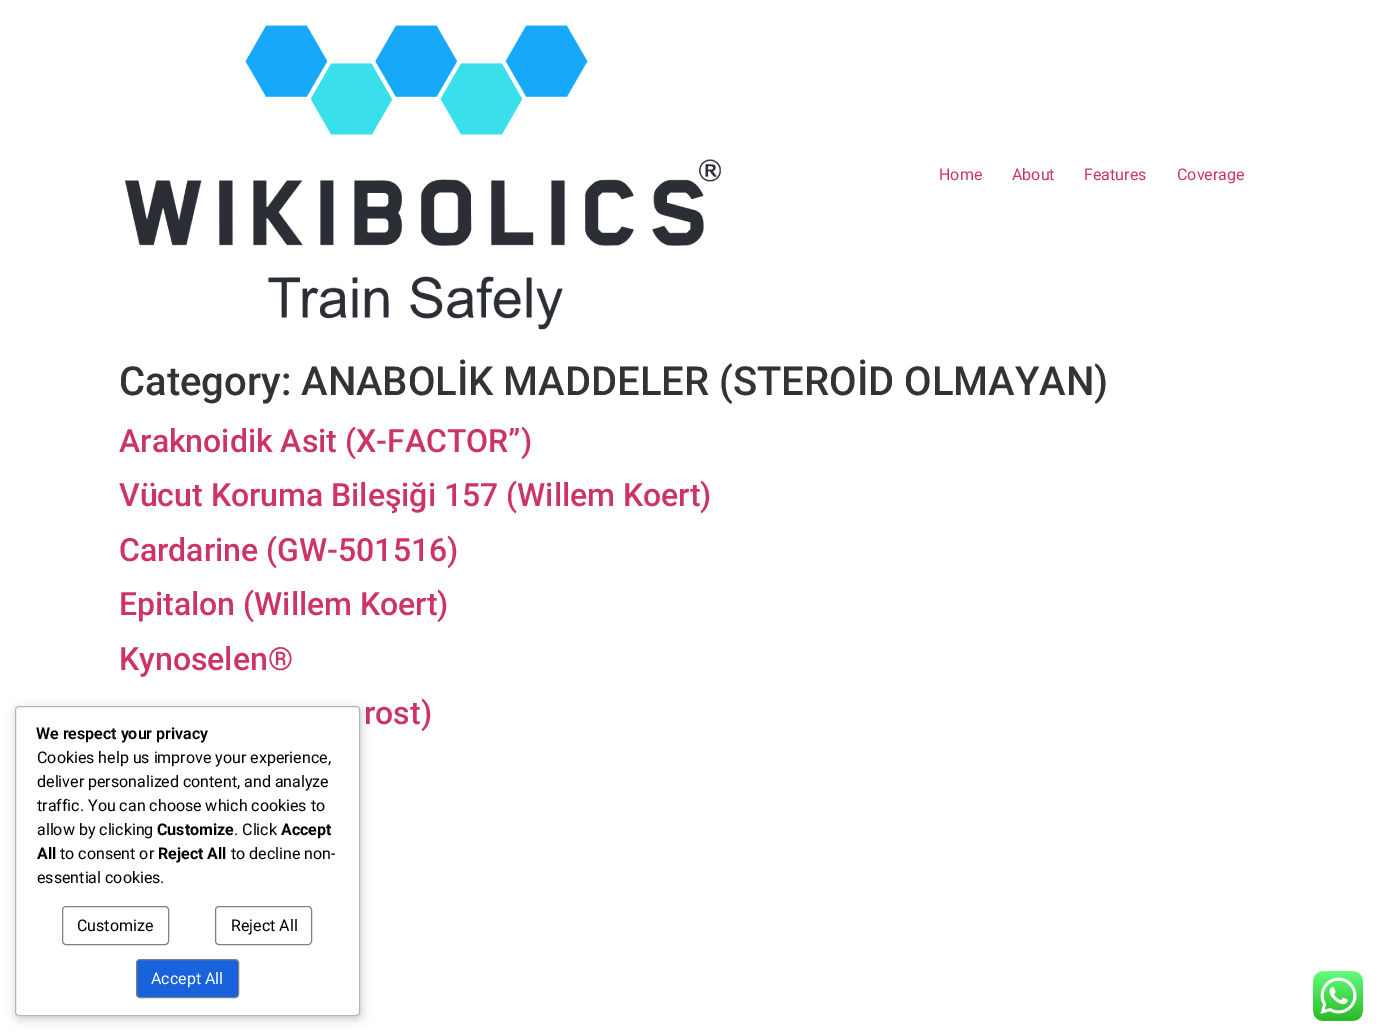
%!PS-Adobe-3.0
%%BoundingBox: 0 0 1378 1036
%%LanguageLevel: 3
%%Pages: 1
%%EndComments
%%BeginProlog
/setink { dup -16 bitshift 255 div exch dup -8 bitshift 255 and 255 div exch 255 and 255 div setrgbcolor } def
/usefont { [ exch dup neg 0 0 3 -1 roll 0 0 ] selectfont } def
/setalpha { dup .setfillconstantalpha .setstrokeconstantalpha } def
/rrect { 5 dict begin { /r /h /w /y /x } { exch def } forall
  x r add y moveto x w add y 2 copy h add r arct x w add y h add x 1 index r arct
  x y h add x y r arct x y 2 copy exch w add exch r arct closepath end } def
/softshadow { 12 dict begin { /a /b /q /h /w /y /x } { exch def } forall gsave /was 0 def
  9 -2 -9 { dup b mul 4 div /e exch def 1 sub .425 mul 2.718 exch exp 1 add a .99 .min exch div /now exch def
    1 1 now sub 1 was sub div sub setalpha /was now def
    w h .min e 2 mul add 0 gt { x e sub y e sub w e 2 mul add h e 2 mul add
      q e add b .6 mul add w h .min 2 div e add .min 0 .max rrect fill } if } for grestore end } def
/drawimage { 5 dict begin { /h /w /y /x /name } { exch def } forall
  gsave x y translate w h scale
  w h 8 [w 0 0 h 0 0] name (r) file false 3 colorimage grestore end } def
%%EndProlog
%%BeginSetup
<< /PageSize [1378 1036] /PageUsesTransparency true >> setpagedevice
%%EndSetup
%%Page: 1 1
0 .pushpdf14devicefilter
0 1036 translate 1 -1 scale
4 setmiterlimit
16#FFFFFF setink
0 0 1378 1036 rectfill
(img1.raw) 124 25 597 305 drawimage
/Roboto-Regular 16 usefont
16#CC3366 setink
[
    [(Home) 939 180]
    [(About) 1012 180]
    [(Features) 1084 180]
    [(Coverage) 1177 180]
] { aload pop moveto show } forall
/Roboto-Medium 40 usefont
16#333333 setink
119 395 moveto (Category: ANABOLİK MADDELER \(STEROİD OLMAYAN\)) show
/Roboto-Medium 32 usefont
16#CC3366 setink
[
    [(Araknoidik Asit \(X-FACTOR”\)) 119 452]
    [(Vücut Koruma Bileşiği 157 \(Willem Koert\)) 119 506]
    [(Cardarine \(GW-501516\)) 119 561]
    [(Epitalon \(Willem Koert\)) 119 615]
    [(Kynoselen®) 119 670]
    [(rost\)) 364 724]
] { aload pop moveto show } forall
16#000000 setink
16 709 345 310 4 5 0.2 softshadow
16#FFFFFF setink
15.5 706.5 344 309 3.5 rrect gsave fill grestore
16#ABB8C3 setink
stroke
/Roboto-SemiBold 16 usefont
16#000000 setink
36 739 moveto (We respect your privacy) show
/Roboto-Regular 16 usefont
[
    [(Cookies help us improve your experience,) 37 763]
    [(deliver personalized content, and analyze) 37 787]
    [(traffic. You can choose which cookies to) 37 811]
    [(allow by clicking) 37 835]
] { aload pop moveto show } forall
/Roboto-Bold 16 usefont
157 835 moveto (Customize) show
/Roboto-Regular 16 usefont
234 835 moveto (. Click) show
/Roboto-Bold 16 usefont
281 835 moveto (Accept) show
37 859 moveto (All) show
/Roboto-Regular 16 usefont
60 859 moveto (to consent or) show
/Roboto-Bold 16 usefont
158 859 moveto (Reject All) show
/Roboto-Regular 16 usefont
231 859 moveto (to decline non-) show
37 883 moveto (essential cookies.) show
16#808080 setink
62.5 906.5 106 38 3.5 rrect stroke
16#000000 setink
77 931 moveto (Customize) show
16#808080 setink
215.5 906.5 96 38 3.5 rrect stroke
16#000000 setink
231 931 moveto (Reject All) show
16#1863DC setink
136.5 959.5 102 38 3.5 rrect gsave fill grestore
16#808080 setink
stroke
16#FFFFFF setink
151 984 moveto (Accept All) show
(img2.raw) 1313 971 50 50 drawimage
.poppdf14devicefilter showpage
%%EOF
